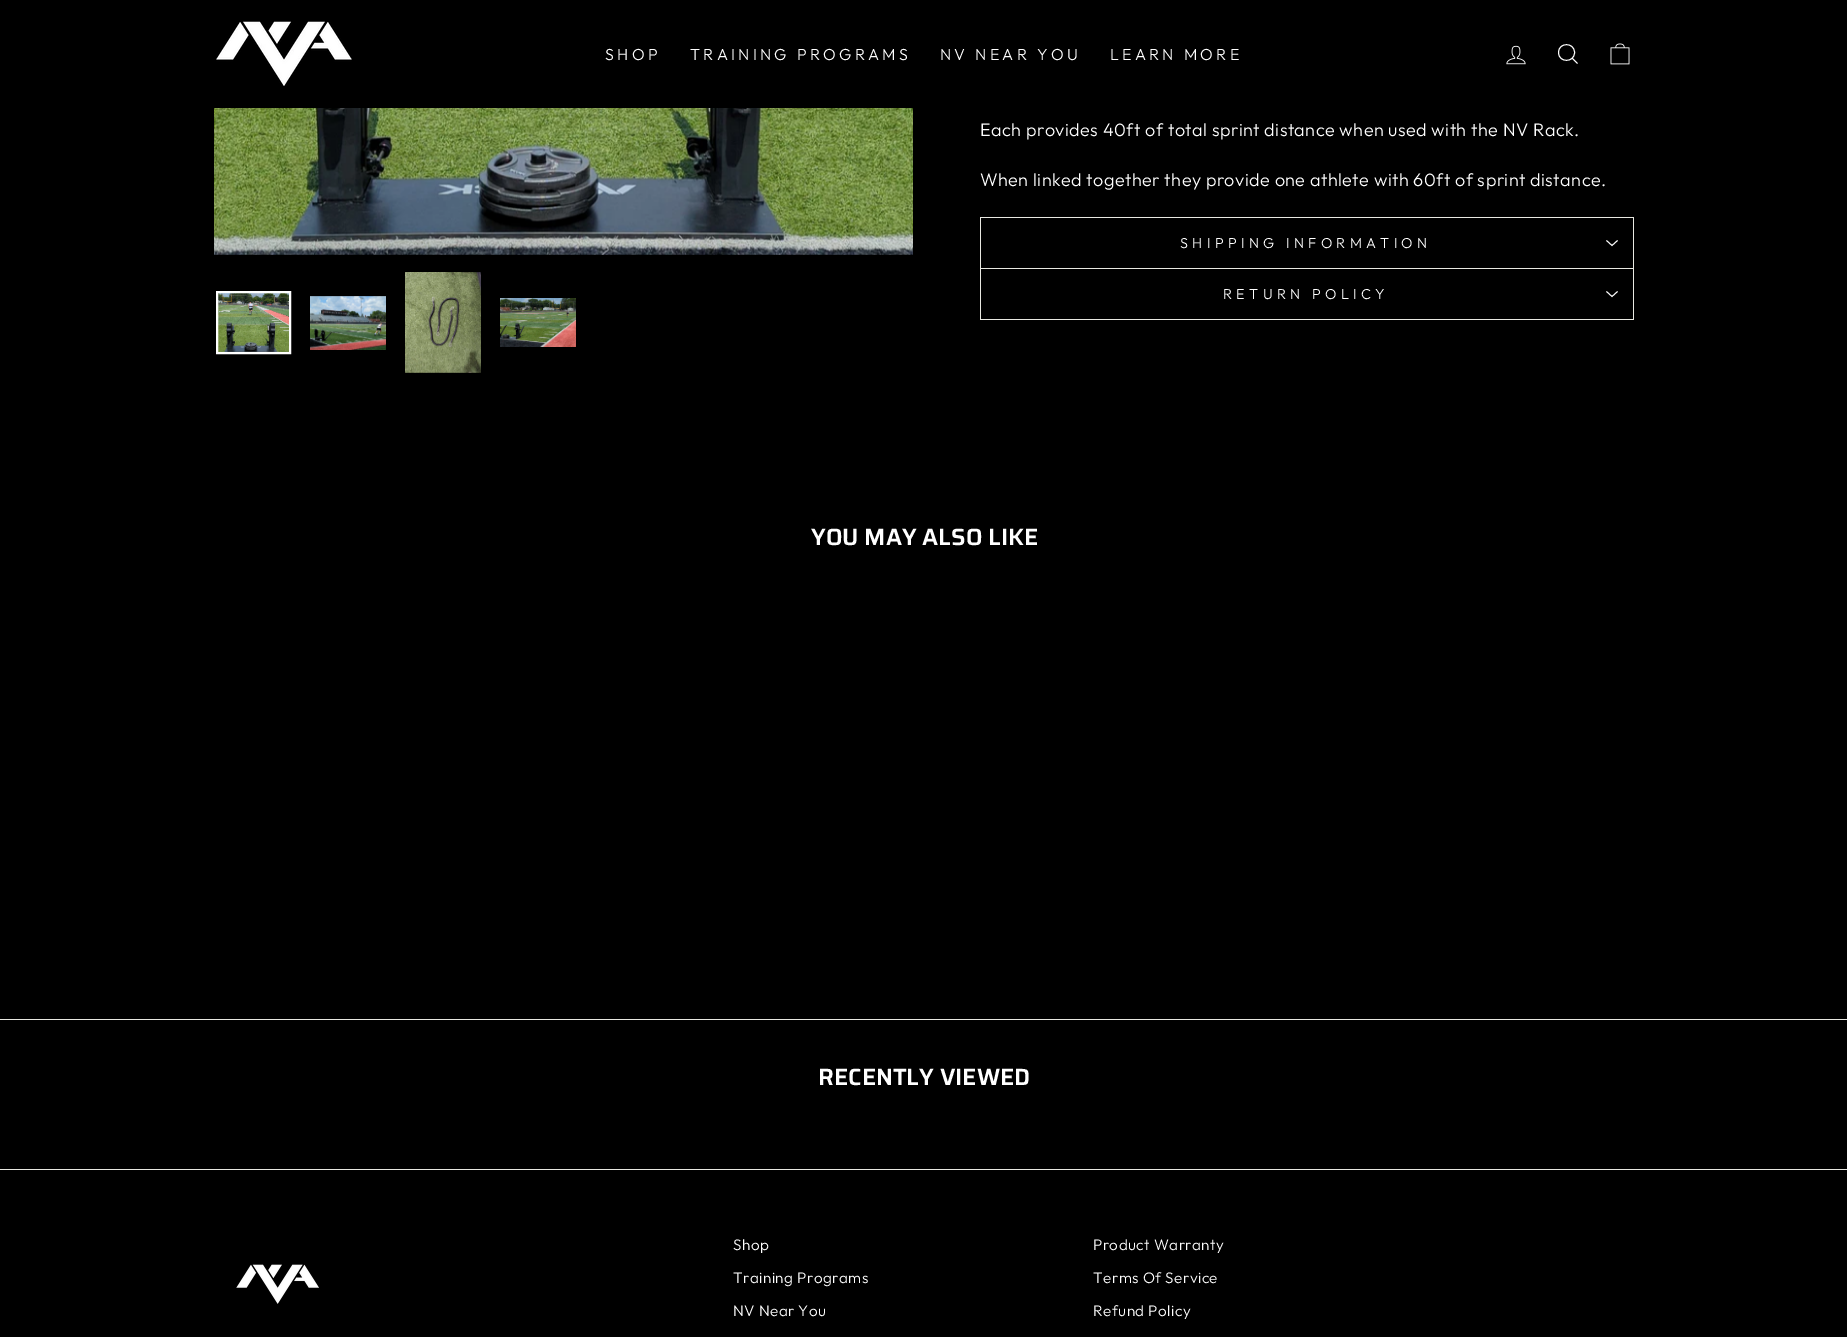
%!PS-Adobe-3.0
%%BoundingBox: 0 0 1847 1337
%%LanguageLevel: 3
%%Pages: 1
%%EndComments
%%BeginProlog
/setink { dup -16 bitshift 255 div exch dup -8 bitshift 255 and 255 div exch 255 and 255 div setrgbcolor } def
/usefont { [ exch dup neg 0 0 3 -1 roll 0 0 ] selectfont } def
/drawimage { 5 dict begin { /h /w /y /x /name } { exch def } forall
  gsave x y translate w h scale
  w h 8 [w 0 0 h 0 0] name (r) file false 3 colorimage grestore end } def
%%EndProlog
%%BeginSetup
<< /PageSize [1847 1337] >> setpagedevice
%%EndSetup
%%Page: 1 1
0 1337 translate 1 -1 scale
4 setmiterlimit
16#000000 setink
0 0 1847 1337 rectfill
(img1.raw) 216 21 136 65 drawimage
/Outfit-Light 16 usefont
16#FFFFFF setink
605 60 moveto 3.25 0 (SHOP) ashow
690 60 moveto 3.25 0 (TRAINING PROGRAMS) ashow
940 60 moveto 3.25 0 (NV NEAR YOU) ashow
1110 60 moveto 3.25 0 (LEARN MORE) ashow
(img2.raw) 1506 45 20 20 drawimage
0.9 setlinewidth
1574.5 52.5 moveto 1574.5 63 1558.5 63 1558.5 52.5 curveto 1558.5 42 1574.5 42 1574.5 52.5 curveto closepath 1577.5 63.5 moveto 1572.5 58.5 lineto stroke
(img3.raw) 1610 43 20 22 drawimage
(img4.raw) 214 108 699 147 drawimage
(img5.raw) 218 293 71 59 drawimage
2 setlinewidth
217 292 73 61 rectstroke
(img6.raw) 310 296 76 54 drawimage
(img7.raw) 405 272 76 101 drawimage
(img8.raw) 500 298 76 49 drawimage
/Outfit-Light 18 usefont
980 136 moveto 0.45 0 (Each provides 40ft of total sprint distance when used with the NV Rack.) ashow
980 186 moveto 0.45 0 (When linked together they provide one athlete with 60ft of sprint distance.) ashow
[
    [980 268 654 1 16#E8E8E1]
    [980 217 654 1 16#E8E8E1]
    [1633 217 1 51 16#E8E8E1]
    [980 217 1 51 16#E8E8E1]
] { aload pop setink rectfill } forall
/Outfit-Light 14.4 usefont
16#FFFFFF setink
1180 248 moveto 4.3 0 (SHIPPING INFORMATION) ashow
0.9 setlinewidth
1606.5 240.5 moveto 1612 245.5 lineto 1617.5 240.5 lineto stroke
[
    [980 319 654 1 16#E8E8E1]
    [1633 269 1 50 16#E8E8E1]
    [980 269 1 50 16#E8E8E1]
] { aload pop setink rectfill } forall
16#FFFFFF setink
1223 299 moveto 4.3 0 (RETURN POLICY) ashow
1606.5 291.5 moveto 1612 296.5 lineto 1617.5 291.5 lineto stroke
/Saira-SemiBold 23.5 usefont
811 545 moveto (YOU MAY ALSO LIKE) show
16#E8E8E1 setink
0 1019 1847 1 rectfill
16#FFFFFF setink
818 1085 moveto (RECENTLY VIEWED) show
16#E8E8E1 setink
0 1169 1847 1 rectfill
(img9.raw) 236 1264 83 40 drawimage
/Outfit-Light 15.25 usefont
16#FFFFFF setink
733 1250 moveto 0.45 0 (Shop) ashow
733 1283 moveto 0.45 0 (Training Programs) ashow
733 1316 moveto 0.45 0 (NV Near You) ashow
1093 1250 moveto 0.45 0 (Product Warranty) ashow
1093 1283 moveto 0.45 0 (Terms Of Service) ashow
1093 1316 moveto 0.45 0 (Refund Policy) ashow
showpage
%%EOF
